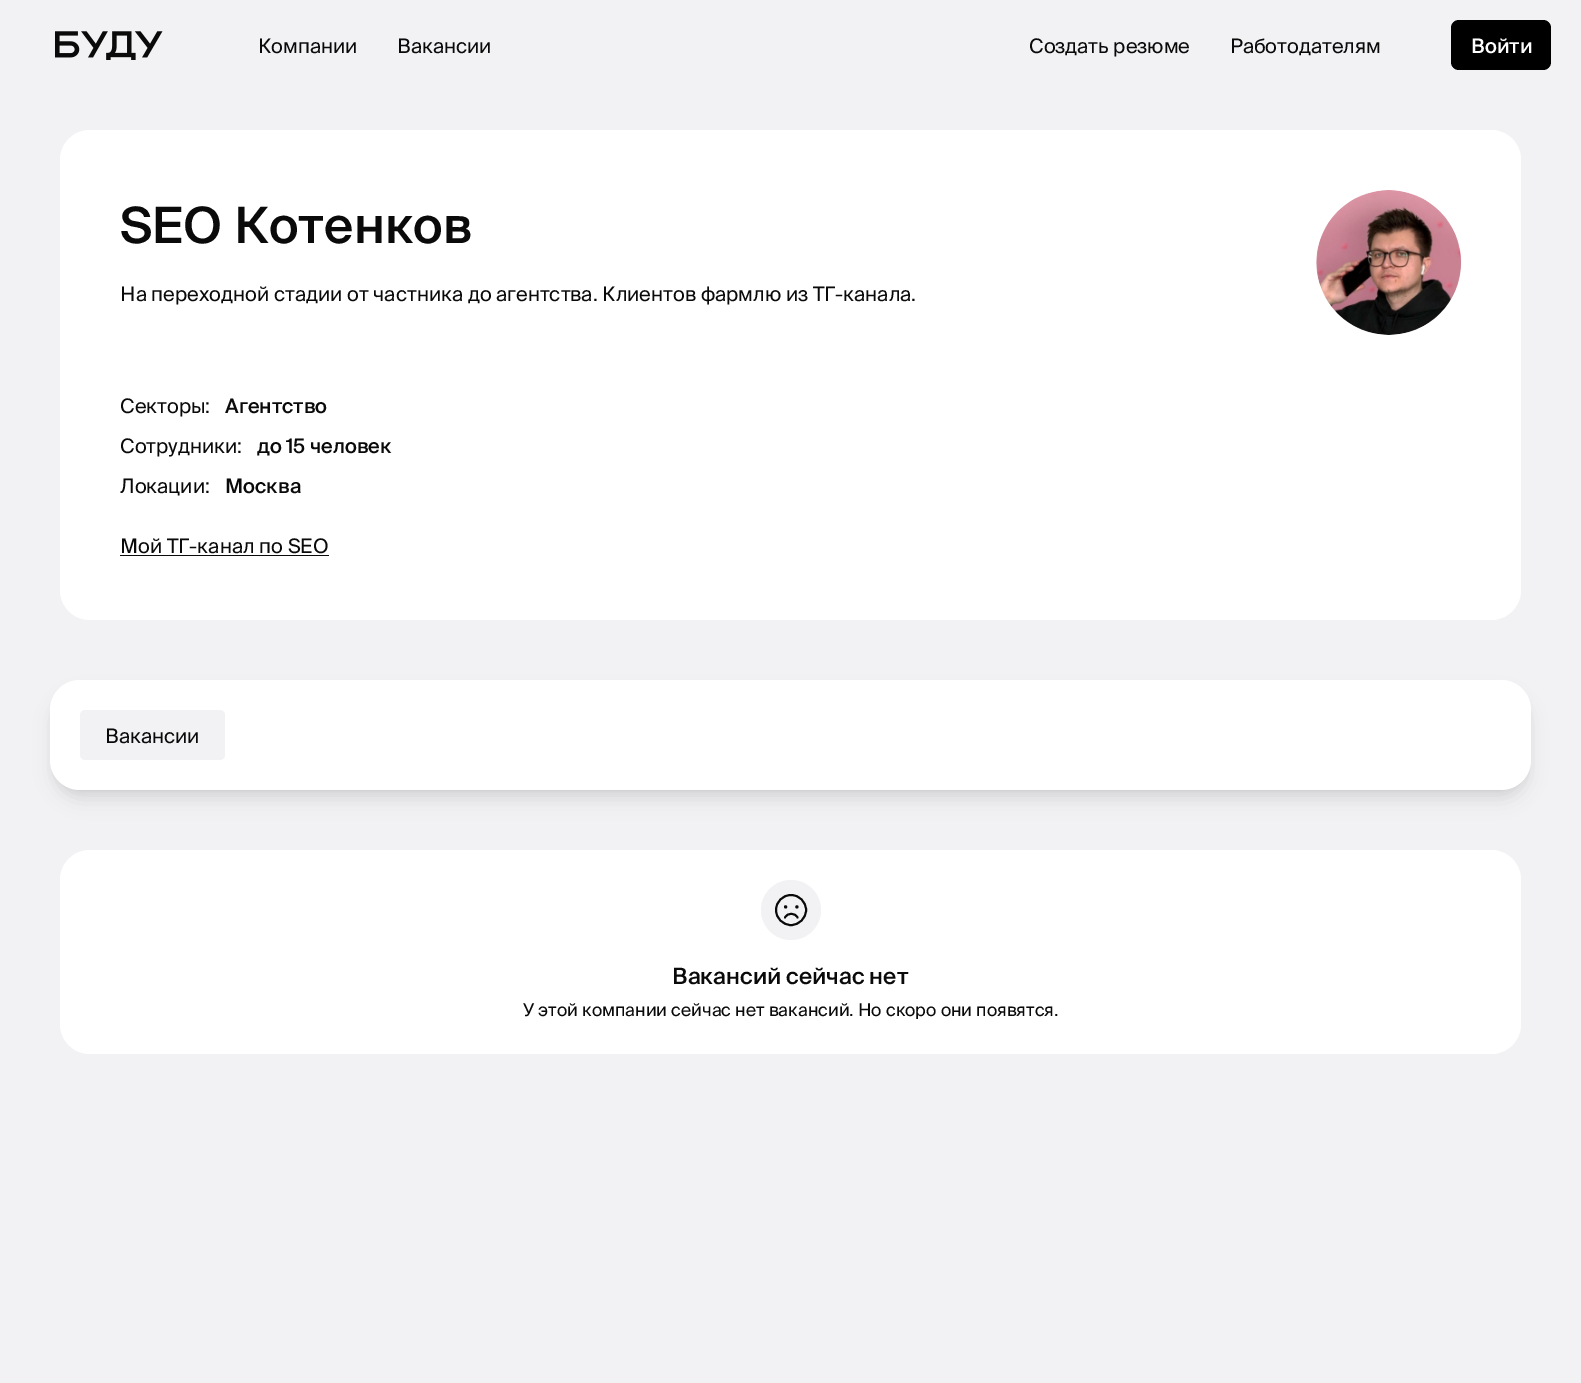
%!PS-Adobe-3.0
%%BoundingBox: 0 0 1581 1383
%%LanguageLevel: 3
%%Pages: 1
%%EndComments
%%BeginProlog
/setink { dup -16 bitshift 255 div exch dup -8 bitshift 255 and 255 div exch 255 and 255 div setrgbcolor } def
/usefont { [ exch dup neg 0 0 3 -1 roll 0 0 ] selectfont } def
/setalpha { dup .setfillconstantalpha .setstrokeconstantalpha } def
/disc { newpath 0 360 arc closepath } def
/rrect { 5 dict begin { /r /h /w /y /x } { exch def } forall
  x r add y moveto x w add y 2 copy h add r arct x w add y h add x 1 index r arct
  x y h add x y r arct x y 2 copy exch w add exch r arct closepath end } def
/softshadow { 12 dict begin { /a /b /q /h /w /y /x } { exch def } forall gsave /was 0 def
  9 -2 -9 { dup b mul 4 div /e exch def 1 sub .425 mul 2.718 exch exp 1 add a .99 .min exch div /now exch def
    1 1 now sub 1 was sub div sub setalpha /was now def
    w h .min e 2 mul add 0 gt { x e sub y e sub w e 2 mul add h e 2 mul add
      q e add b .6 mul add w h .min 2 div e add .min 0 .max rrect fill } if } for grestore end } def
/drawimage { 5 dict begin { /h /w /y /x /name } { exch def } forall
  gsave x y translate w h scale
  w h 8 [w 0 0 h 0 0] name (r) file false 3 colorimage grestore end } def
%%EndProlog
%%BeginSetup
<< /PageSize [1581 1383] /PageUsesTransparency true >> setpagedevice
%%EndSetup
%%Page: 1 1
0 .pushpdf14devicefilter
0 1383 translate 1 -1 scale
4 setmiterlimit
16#F2F2F4 setink
0 0 1581 1383 rectfill
(img1.raw) 55 31 108 29 drawimage
/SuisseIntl-Regular 20 usefont
16#0A0A0A setink
[
    [(Компании) 258 53]
    [(Вакансии) 397 53]
    [(Создать резюме) 1029 53]
    [(Работодателям) 1230 53]
] { aload pop moveto show } forall
16#000000 setink
1451 20 100 50 8 rrect fill
/SuisseIntl-Medium 20 usefont
16#FFFFFF setink
1471 53 moveto (Войти) show
60 130 1461 490 30 rrect fill
/SuisseIntl-Medium 50 usefont
16#0A0A0A setink
120 243 moveto (SEO Котенков) show
/SuisseIntl-Regular 20 usefont
120 301 moveto (На переходной стадии от частника до агентства. Клиентов фармлю из ТГ-канала.) show
(img2.raw) 1316 190 146 145 drawimage
120 413 moveto (Секторы:) show
/SuisseIntl-Medium 20 usefont
225 413 moveto (Агентство) show
/SuisseIntl-Regular 20 usefont
120 453 moveto (Сотрудники:) show
/SuisseIntl-Medium 20 usefont
257 453 moveto (до 15 человек) show
/SuisseIntl-Regular 20 usefont
120 493 moveto (Локации:) show
/SuisseIntl-Medium 20 usefont
225 493 moveto (Москва) show
/SuisseIntl-Regular 20 usefont
120 553 moveto (Мой ТГ-канал по SEO) show
120 555 209 1 rectfill
16#000000 setink
55 690 1471 100 25 4 0.1 softshadow
54 696 1474 103 26 9.5 0.1 softshadow
16#FFFFFF setink
50 680 1481 110 30 rrect fill
16#F2F2F4 setink
80 710 145 50 5 rrect fill
16#0A0A0A setink
105 743 moveto (Вакансии) show
16#FFFFFF setink
60 850 1461 204 30 rrect fill
16#F2F2F4 setink
791 910 30 disc fill
16#0A0A0A setink
1.9 setlinewidth
791 910 15 disc stroke
1 setlinecap
1 setlinejoin
797.5 917.5 moveto 795 912.5 787.5 912.5 785 917.5 curveto stroke
785.6 906.9 1.6 disc fill
796.9 906.9 1.6 disc fill
/SuisseIntl-Medium 22.5 usefont
672 984 moveto (Вакансий сейчас нет) show
/SuisseIntl-Regular 17.5 usefont
523 1016 moveto (У этой компании сейчас нет вакансий. Но скоро они появятся.) show
.poppdf14devicefilter showpage
%%EOF
